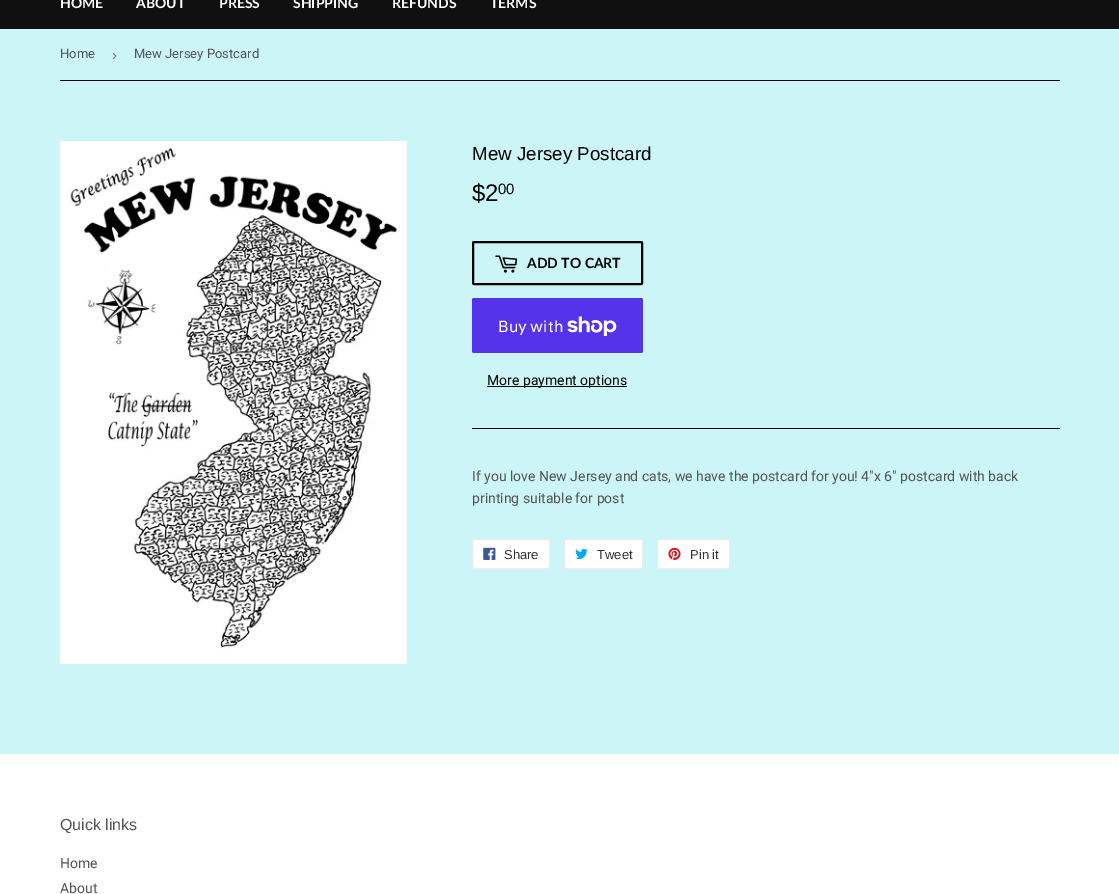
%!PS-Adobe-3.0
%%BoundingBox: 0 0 1119 894
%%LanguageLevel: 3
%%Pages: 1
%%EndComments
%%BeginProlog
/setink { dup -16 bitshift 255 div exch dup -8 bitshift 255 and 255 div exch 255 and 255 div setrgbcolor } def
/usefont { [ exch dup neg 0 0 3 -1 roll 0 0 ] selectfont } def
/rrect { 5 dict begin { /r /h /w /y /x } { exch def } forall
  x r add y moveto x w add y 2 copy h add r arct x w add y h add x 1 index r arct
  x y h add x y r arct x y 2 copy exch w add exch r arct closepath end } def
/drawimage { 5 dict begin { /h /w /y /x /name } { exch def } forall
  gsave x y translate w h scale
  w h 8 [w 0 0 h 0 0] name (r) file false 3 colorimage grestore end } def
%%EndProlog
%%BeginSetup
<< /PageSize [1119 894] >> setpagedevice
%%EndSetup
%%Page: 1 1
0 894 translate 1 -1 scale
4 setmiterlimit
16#CCF5F8 setink
0 0 1119 894 rectfill
16#0F100F setink
0 0 1119 29 rectfill
/Lato-Bold 14 usefont
16#FFFFFF setink
[
    [(HOME) 60 8]
    [(ABOUT) 136 8]
    [(PRESS) 219 8]
    [(SHIPPING) 293 8]
    [(REFUNDS) 392 8]
    [(TERMS) 490 8]
] { aload pop moveto show } forall
16#020202 setink
60 80 1000 1 rectfill
/Roboto-Regular 13 usefont
16#545454 setink
60 58 moveto (Home) show
/LiberationSans-Regular 15 usefont
16#767676 setink
112 60 moveto (›) show
/Roboto-Regular 13 usefont
16#545454 setink
134 58 moveto (Mew Jersey Postcard) show
(img1.raw) 60 141 347 523 drawimage
/LiberationSans-Regular 18.75 usefont
16#020202 setink
472 160 moveto (Mew Jersey Postcard) show
/LiberationSans-Regular 24 usefont
472 201 moveto ($2) show
/LiberationSans-Regular 15 usefont
498 194 moveto (00) show
2 setlinewidth
473 242 169 42 1 rrect stroke
(img2.raw) 495 255 23 18 drawimage
/Lato-Bold 14 usefont
527 268 moveto (ADD TO CART) show
16#5433EB setink
472 298 171 55 2 rrect fill
/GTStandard-Regular 16 usefont
16#FFFFFF setink
498 332 moveto (Buy with) show
(img3.raw) 567 316 50 20 drawimage
16#020202 setink
487 386 140 1 rectfill
/Roboto-Regular 14 usefont
487 385 moveto (More payment options) show
472 428 588 1 rectfill
16#545454 setink
472 481 moveto (If you love New Jersey and cats, we have the postcard for you! 4"x 6" postcard with back) show
472 503 moveto (printing suitable for post) show
16#FFFFFF setink
472.5 539.5 77 29 1.5 rrect gsave fill grestore
16#ECECEC setink
1 setlinewidth
stroke
(img4.raw) 483 547 13 13 drawimage
/LiberationSans-Regular 13 usefont
16#333333 setink
504 559 moveto (Share) show
16#FFFFFF setink
564.5 539.5 78 29 1.5 rrect gsave fill grestore
16#ECECEC setink
stroke
(img5.raw) 575 548 13 11 drawimage
16#333333 setink
597 559 moveto (Tweet) show
16#FFFFFF setink
657.5 539.5 72 29 1.5 rrect gsave fill grestore
16#ECECEC setink
stroke
(img6.raw) 668 547 13 13 drawimage
16#333333 setink
690 559 moveto (Pin it) show
16#FFFFFF setink
0 754 1119 140 rectfill
/LiberationSans-Regular 16 usefont
16#545454 setink
60 830 moveto (Quick links) show
/Roboto-Regular 14 usefont
60 868 moveto (Home) show
60 893 moveto (About) show
showpage
%%EOF
